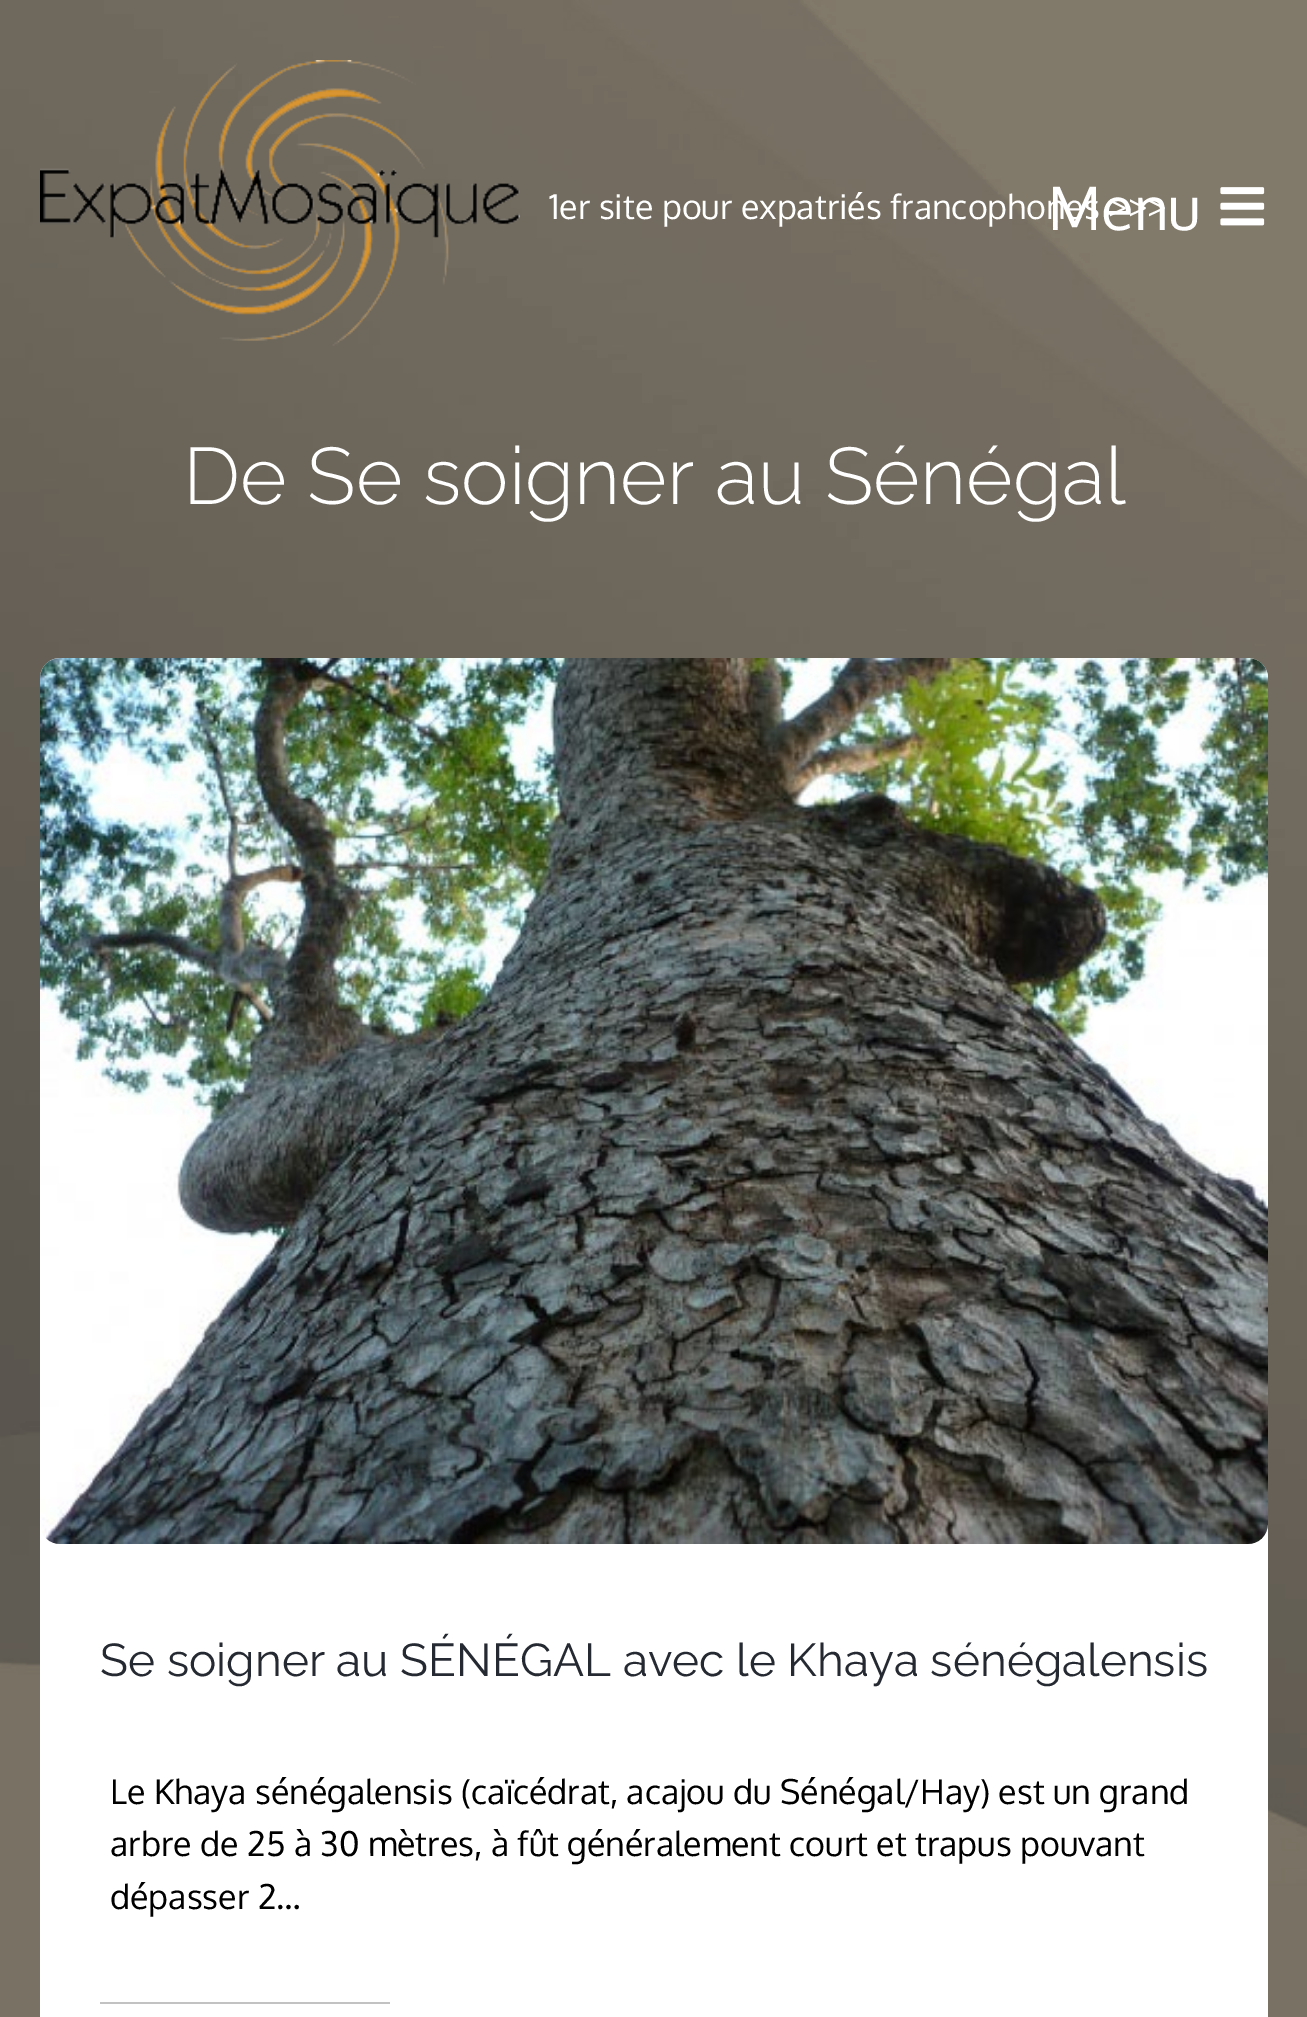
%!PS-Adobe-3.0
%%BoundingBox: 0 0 1307 2017
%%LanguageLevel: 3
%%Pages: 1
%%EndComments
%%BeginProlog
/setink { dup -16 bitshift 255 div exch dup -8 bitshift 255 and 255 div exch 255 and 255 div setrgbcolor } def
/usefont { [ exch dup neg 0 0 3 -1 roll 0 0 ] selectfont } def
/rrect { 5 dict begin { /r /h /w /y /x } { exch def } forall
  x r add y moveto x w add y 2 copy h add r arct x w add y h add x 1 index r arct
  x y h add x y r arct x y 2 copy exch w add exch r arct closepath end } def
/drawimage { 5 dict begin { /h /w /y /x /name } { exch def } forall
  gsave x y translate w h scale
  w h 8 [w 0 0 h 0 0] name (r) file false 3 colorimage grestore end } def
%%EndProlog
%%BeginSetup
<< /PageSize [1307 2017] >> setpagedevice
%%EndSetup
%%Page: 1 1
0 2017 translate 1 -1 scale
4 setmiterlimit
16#FFFFFF setink
0 0 1307 2017 rectfill
(img1.raw) 0 0 1307 2017 drawimage
/Oxygen-Regular 34 usefont
549 219 moveto (1er site pour expatriés francophones >>>) show
/Oxygen-Regular 60 usefont
1048 230 moveto (Menu) show
(img2.raw) 1220 187 45 39 drawimage
(img3.raw) 40 60 480 286 drawimage
/Raleway-Light 80 usefont
183 504 moveto (De Se soigner au Sénégal) show
40 658 1228 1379 20 rrect fill
(img4.raw) 40 658 1228 886 drawimage
/Raleway-Regular 46 usefont
16#252931 setink
100 1676 moveto (Se soigner au SÉNÉGAL avec le Khaya sénégalensis) show
/Oxygen-Regular 34 usefont
16#000000 setink
[
    [(Le Khaya sénégalensis \(caïcédrat, acajou du Sénégal/Hay\) est un grand) 110 1804]
    [(arbre de 25 à 30 mètres, à fût généralement court et trapus pouvant) 110 1856]
    [(dépasser 2…) 110 1909]
] { aload pop moveto show } forall
16#C2C2C2 setink
100 2002 290 2 rectfill
showpage
%%EOF
